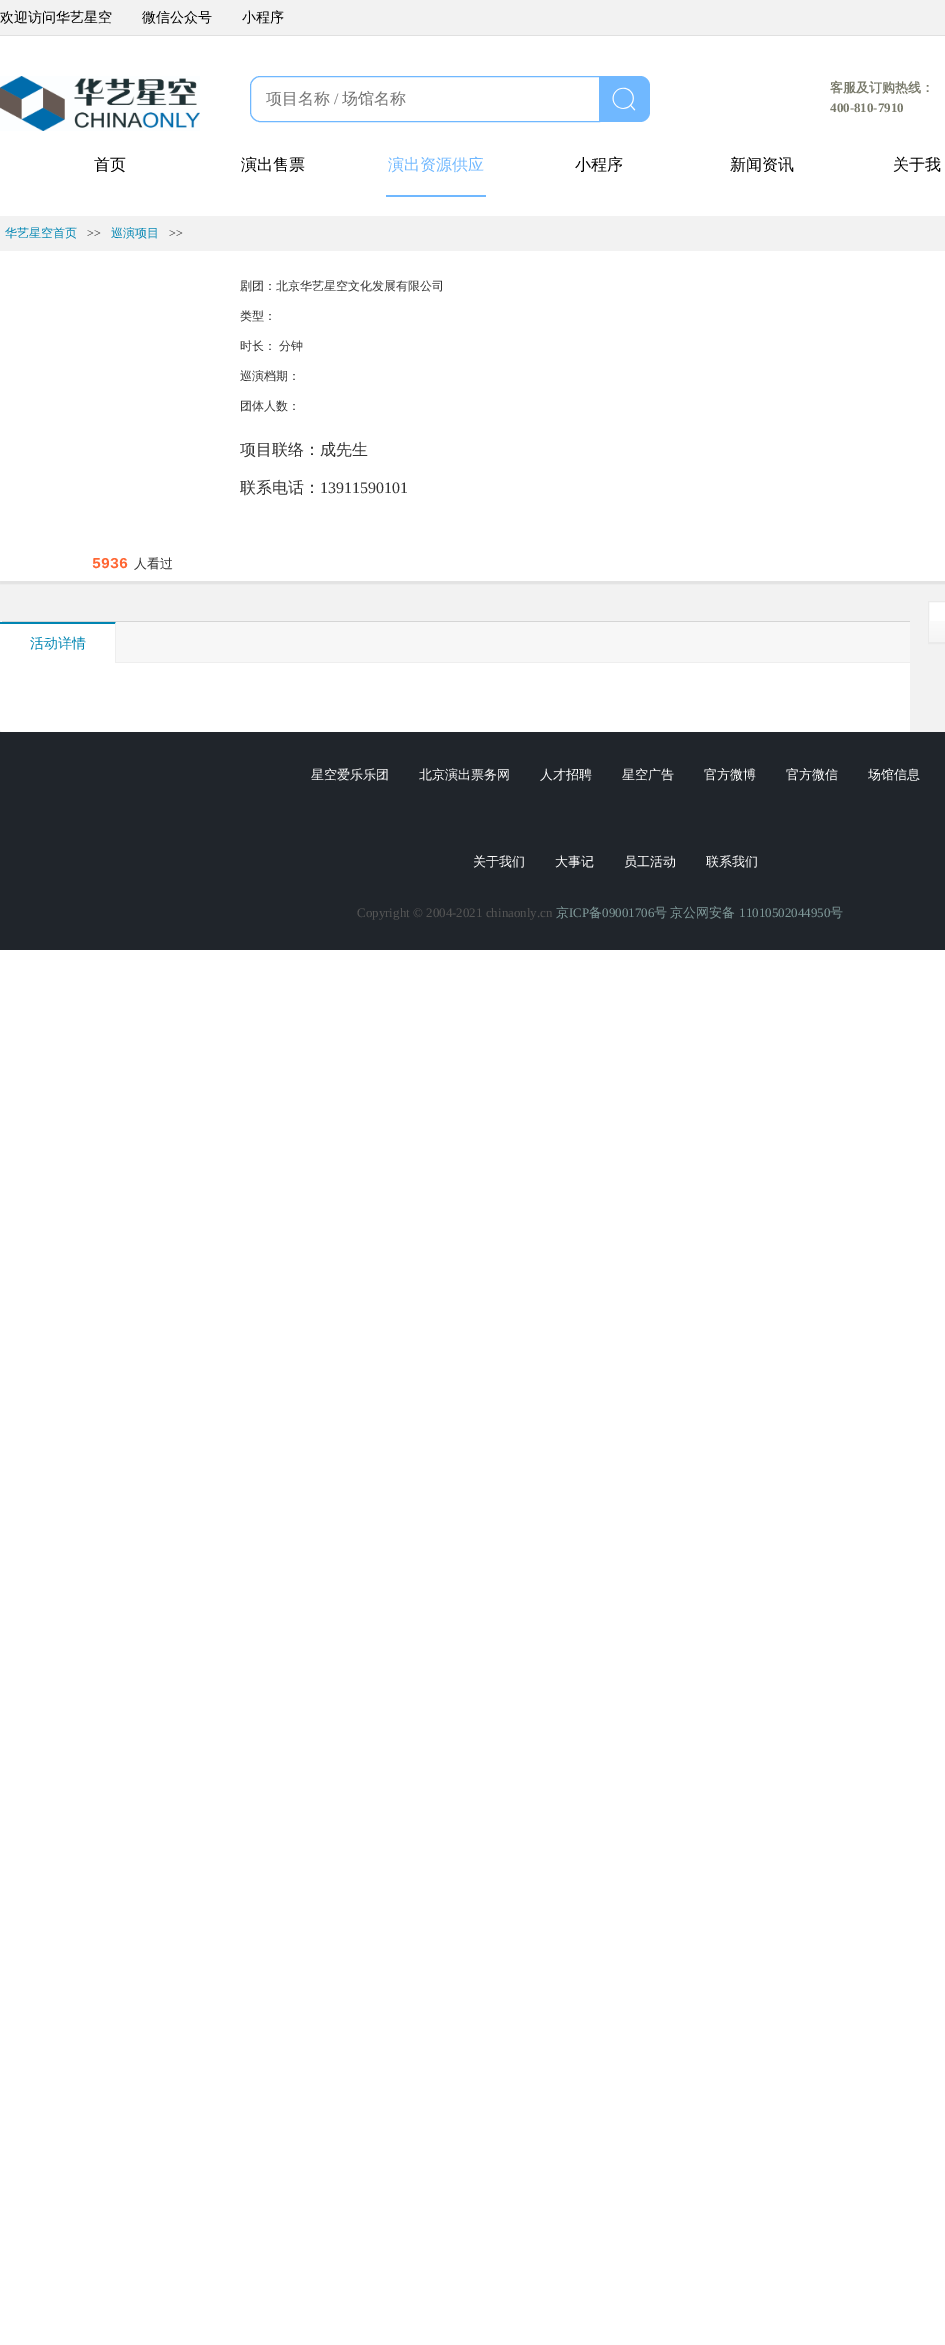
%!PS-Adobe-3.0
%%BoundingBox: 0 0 945 2345
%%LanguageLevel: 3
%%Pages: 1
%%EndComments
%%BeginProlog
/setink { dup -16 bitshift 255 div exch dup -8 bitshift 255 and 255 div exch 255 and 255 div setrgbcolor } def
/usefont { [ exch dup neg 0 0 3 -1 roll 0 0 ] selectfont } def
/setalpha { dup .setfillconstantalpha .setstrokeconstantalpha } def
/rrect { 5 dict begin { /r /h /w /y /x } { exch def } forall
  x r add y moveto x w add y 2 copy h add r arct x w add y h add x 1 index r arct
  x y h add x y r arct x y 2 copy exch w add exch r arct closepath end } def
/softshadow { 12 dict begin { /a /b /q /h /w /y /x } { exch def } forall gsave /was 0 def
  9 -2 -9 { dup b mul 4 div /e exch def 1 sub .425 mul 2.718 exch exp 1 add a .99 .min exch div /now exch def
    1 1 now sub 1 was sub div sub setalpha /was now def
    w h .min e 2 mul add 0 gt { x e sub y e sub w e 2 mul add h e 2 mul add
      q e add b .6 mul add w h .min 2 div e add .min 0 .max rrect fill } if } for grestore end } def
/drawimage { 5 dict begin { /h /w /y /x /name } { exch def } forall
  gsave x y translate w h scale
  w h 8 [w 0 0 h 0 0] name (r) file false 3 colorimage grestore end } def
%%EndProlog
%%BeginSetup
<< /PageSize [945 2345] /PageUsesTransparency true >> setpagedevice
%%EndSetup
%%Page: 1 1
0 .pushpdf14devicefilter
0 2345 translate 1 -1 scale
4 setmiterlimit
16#FFFFFF setink
0 0 945 2345 rectfill
16#F2F2F2 setink
0 0 945 35 rectfill
16#E0E0E0 setink
0 35 945 1 rectfill
/WenQuanYiZenHei-Medium 14 usefont
16#000000 setink
[
    [(欢迎访问华艺星空) 0 22]
    [(微信公众号) 142 22]
    [(小程序) 242 22]
] { aload pop moveto show } forall
(img1.raw) 0 76 200 55 drawimage
16#70B8FF setink
260 76.5 moveto 599.5 76.5 lineto 599.5 121.5 lineto 260 121.5 lineto 255 121.5 250.5 117 250.5 112 curveto 250.5 86 lineto 250.5 81 255 76.5 260 76.5 curveto closepath stroke
/WenQuanYiZenHei-Medium 16 usefont
16#757575 setink
266 104 moveto (项目名称) show
/LiberationSerif-Regular 16 usefont
334 104 moveto (/) show
/WenQuanYiZenHei-Medium 16 usefont
342 104 moveto (场馆名称) show
16#70B8FF setink
600 76 moveto 640 76 lineto 645.5 76 650 80.5 650 86 curveto 650 112 lineto 650 117.5 645.5 122 640 122 curveto 600 122 lineto closepath fill
(img2.raw) 612 87 24 24 drawimage
/WenQuanYiZenHei-Bold 13 usefont
16#78796A setink
830 92 moveto (客服及订购热线：) show
/LiberationSerif-Bold 13 usefont
830 112 moveto (400-810-7910) show
/WenQuanYiZenHei-Medium 16 usefont
16#000000 setink
94 170 moveto (首页) show
241 170 moveto (演出售票) show
16#70B8FF setink
386 195 100 2 rectfill
388 170 moveto (演出资源供应) show
16#000000 setink
[
    [(小程序) 575 170]
    [(新闻资讯) 730 170]
    [(关于我) 893 170]
] { aload pop moveto show } forall
16#F2F2F2 setink
0 216 945 516 rectfill
/WenQuanYiZenHei-Medium 12 usefont
16#0085B2 setink
5 237 moveto (华艺星空首页) show
/LiberationSerif-Regular 12 usefont
16#333333 setink
87 237 moveto (>>) show
/WenQuanYiZenHei-Medium 12 usefont
16#0085B2 setink
111 237 moveto (巡演项目) show
/LiberationSerif-Regular 12 usefont
16#333333 setink
169 237 moveto (>>) show
16#E2E2E2 setink
0 252 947 332 0 0.5 1 softshadow
16#FFFFFF setink
0 251 945 330 rectfill
/WenQuanYiZenHei-Medium 12 usefont
16#333333 setink
240 290 moveto (剧团：北京华艺星空文化发展有限公司) show
240 320 moveto (类型：) show
240 350 moveto -1 0 32 (时长： 分钟) widthshow
240 380 moveto (巡演档期：) show
240 410 moveto (团体人数：) show
/WenQuanYiZenHei-Medium 16 usefont
240 455 moveto (项目联络：成先生) show
240 493 moveto (联系电话：) show
/LiberationSerif-Regular 16 usefont
320 493 moveto (13911590101) show
/LiberationMono-Bold 15 usefont
16#FF6633 setink
92 568 moveto (5936) show
/WenQuanYiZenHei-Medium 13 usefont
16#333333 setink
134 568 moveto (人看过) show
16#FFFFFF setink
3 621 moveto 910 621 lineto 910 732 lineto 3 732 lineto 1.5 732 0 730.5 0 729 curveto 0 624 lineto 0 622.5 1.5 621 3 621 curveto closepath fill
[
    [2 621 908 1 16#D5D5D5]
    [116 622 794 40 16#F7F7F7]
    [116 662 794 1 16#EEEEEE]
    [0 622 1 1 16#FFFFFF]
] { aload pop setink rectfill } forall
16#0085B2 setink
0 622 moveto 116 622 lineto 115 624 lineto 0 624 lineto closepath fill
16#EEEEEE setink
116 622 moveto 116 663 lineto 115 663 lineto 115 624 lineto closepath fill
/WenQuanYiZenHei-Medium 14 usefont
16#0085B2 setink
30 648 moveto (活动详情) show
16#FFFFFF setink
929 602 16 19 rectfill
16#EAEAEA setink
928.5 601.5 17 42 rectstroke
(img3.raw) 929 621 16 21 drawimage
929 642 16 1 rectfill
16#20252B setink
0 732 945 218 rectfill
/WenQuanYiZenHei-Medium 13 usefont
16#FFFFFF setink
[
    [(星空爱乐乐团) 311 779]
    [(北京演出票务网) 419 779]
    [(人才招聘) 540 779]
    [(星空广告) 622 779]
    [(官方微博) 704 779]
    [(官方微信) 786 779]
    [(场馆信息) 868 779]
    [(关于我们) 473 866]
    [(大事记) 555 866]
    [(员工活动) 624 866]
    [(联系我们) 706 866]
] { aload pop moveto show } forall
/LiberationSerif-Regular 13 usefont
16#555555 setink
357 917 moveto (Copyright © 2004-2021 chinaonly.cn) show
/WenQuanYiZenHei-Medium 13 usefont
16#7F9999 setink
556 917 moveto (京) show
/LiberationSerif-Regular 13 usefont
569 917 moveto (ICP) show
/WenQuanYiZenHei-Medium 13 usefont
589 917 moveto (备) show
/LiberationSerif-Regular 13 usefont
602 917 moveto (09001706) show
/WenQuanYiZenHei-Medium 13 usefont
654 917 moveto (号) show
670 917 moveto (京公网安备) show
/LiberationSerif-Regular 13 usefont
739 917 moveto (11010502044950) show
/WenQuanYiZenHei-Medium 13 usefont
830 917 moveto (号) show
.poppdf14devicefilter showpage
%%EOF
